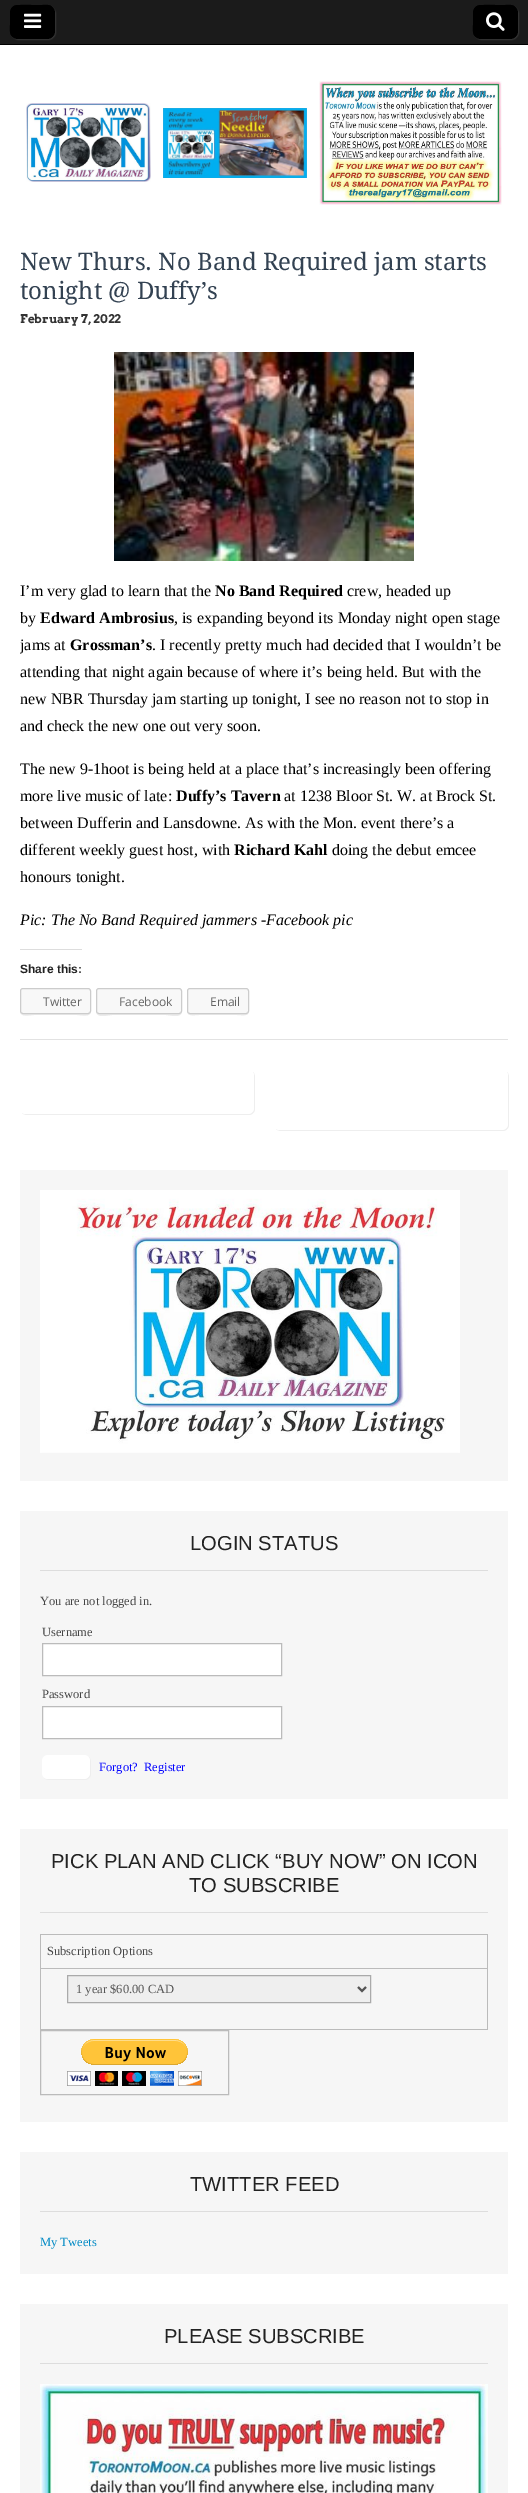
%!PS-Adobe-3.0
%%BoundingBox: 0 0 528 2493
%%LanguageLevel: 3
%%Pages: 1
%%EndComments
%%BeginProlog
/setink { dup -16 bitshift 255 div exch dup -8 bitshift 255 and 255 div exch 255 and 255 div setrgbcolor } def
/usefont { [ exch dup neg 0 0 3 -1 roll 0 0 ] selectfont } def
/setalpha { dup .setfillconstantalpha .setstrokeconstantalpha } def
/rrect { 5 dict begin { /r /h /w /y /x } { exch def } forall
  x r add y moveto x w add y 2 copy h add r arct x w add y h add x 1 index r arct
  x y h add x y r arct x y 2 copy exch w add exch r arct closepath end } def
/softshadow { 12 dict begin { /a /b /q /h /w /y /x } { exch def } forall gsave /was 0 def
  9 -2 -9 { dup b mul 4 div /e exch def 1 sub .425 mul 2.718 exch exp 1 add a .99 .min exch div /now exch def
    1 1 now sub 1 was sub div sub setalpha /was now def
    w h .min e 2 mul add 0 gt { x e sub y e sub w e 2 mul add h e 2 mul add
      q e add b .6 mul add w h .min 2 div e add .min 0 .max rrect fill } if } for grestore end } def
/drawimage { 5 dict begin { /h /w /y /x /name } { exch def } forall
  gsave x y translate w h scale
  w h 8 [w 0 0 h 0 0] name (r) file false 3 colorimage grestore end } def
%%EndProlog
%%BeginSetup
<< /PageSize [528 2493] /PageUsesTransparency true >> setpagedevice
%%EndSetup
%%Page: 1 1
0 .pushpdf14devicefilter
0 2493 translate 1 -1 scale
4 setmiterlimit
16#FFFFFF setink
0 0 528 2493 rectfill
16#1B1B1B setink
0 0 528 44 rectfill
16#000000 setink
0 44 528 1 rectfill
16#333333 setink
11 6 45 34 8 0.5 1 softshadow
16#000000 setink
10 5 45 34 8 rrect fill
19 6 moveto 50 6 lineto 52 7 lineto 49 4 46 5 42 5 curveto 32 5 lineto 10 5 10 3 10 25 curveto 10 29 9 34 13 37 curveto 10 33 10 13 13 9 curveto 14 7 16 6 19 6 curveto closepath fill
(img1.raw) 24 13 18 15 drawimage
16#333333 setink
474 6 45 34 8 0.5 1 softshadow
16#000000 setink
473 5 45 34 8 rrect fill
482 6 moveto 513 6 lineto 515 7 lineto 512 4 509 5 505 5 curveto 496 5 lineto 473 5 473 3 473 25 curveto 473 29 472 34 476 37 curveto 473 33 473 13 476 9 curveto 477 7 479 6 482 6 curveto closepath fill
(img2.raw) 486 12 19 19 drawimage
(img3.raw) 26 103 125 79 drawimage
(img4.raw) 163 108 144 70 drawimage
(img5.raw) 319 81 183 124 drawimage
16#E2E2E2 setink
20 1039 488 1 rectfill
/DroidSerif-Regular 24 usefont
16#334252 setink
20 270 moveto (New Thurs. No Band Required jam starts) show
20 299 moveto (tonight @ Duffy’s) show
/Arvo-Bold 12 usefont
16#333333 setink
20 323 moveto (February 7, 2022) show
(img6.raw) 114 352 300 209 drawimage
/LiberationSerif-Regular 16 usefont
16#000000 setink
20 596 moveto (I’m very glad to learn that the) show
/LiberationSerif-Bold 16 usefont
215 596 moveto (No Band Required) show
/LiberationSerif-Regular 16 usefont
347 596 moveto (crew, headed up) show
20 623 moveto (by) show
/LiberationSerif-Bold 16 usefont
40 623 moveto (Edward Ambrosius) show
/LiberationSerif-Regular 16 usefont
174 623 moveto (, is expanding beyond its Monday night open stage) show
gsave
20 336 488 693 rectclip
20 650 moveto (jams at) show
grestore
/LiberationSerif-Bold 16 usefont
70 650 moveto (Grossman’s) show
/LiberationSerif-Regular 16 usefont
[
    [(. I recently pretty much had decided that I wouldn’t be) 152 650]
    [(attending that night again because of where it’s being held. But with the) 20 677]
    [(new NBR Thursday jam starting up tonight, I see no reason not to stop in) 20 704]
    [(and check the new one out very soon.) 20 731]
    [(The new 9-1hoot is being held at a place that’s increasingly been offering) 20 774]
    [(more live music of late:) 20 801]
] { aload pop moveto show } forall
/LiberationSerif-Bold 16 usefont
176 801 moveto (Duffy’s Tavern) show
/LiberationSerif-Regular 16 usefont
[
    [(at 1238 Bloor St. W. at Brock St.) 284 801]
    [(between Dufferin and Lansdowne. As with the Mon. event there’s a) 20 828]
    [(different weekly guest host, with) 20 855]
] { aload pop moveto show } forall
/LiberationSerif-Bold 16 usefont
234 855 moveto (Richard Kahl) show
/LiberationSerif-Regular 16 usefont
332 855 moveto (doing the debut emcee) show
20 882 moveto (honours tonight.) show
/LiberationSerif-Italic 16 usefont
20 925 moveto (Pic: The No Band Required jammers -Facebook pic) show
16#DDDDDD setink
20 949 62 1 rectfill
/LiberationSans-Bold 12 usefont
16#222222 setink
20 973 moveto (Share this:) show
16#EBEBEB setink
20 1011 moveto 20 1018 30 1015 34 1015 curveto 77 1015 lineto 81 1015 91 1018 91 1011 curveto 91 1013 90 1014 88 1014 curveto 23 1014 lineto 21 1014 20 1013 20 1011 curveto closepath fill
16#F8F8F8 setink
20.5 988.5 70 25 2.5 rrect gsave fill grestore
16#CCCCCC setink
stroke
/OpenSans-Regular 12 usefont
16#656565 setink
43 1006 moveto (Twitter) show
16#EBEBEB setink
96 1011 moveto 96 1019 109 1015 112 1015 curveto 166 1015 lineto 169 1015 182 1019 182 1011 curveto 182 1013 181 1014 179 1014 curveto 99 1014 lineto 97 1014 96 1013 96 1011 curveto closepath fill
16#F8F8F8 setink
96.5 988.5 85 25 2.5 rrect gsave fill grestore
16#CCCCCC setink
stroke
16#656565 setink
119 1006 moveto (Facebook) show
16#EBEBEB setink
187 1011 moveto 187 1017 195 1015 199 1015 curveto 237 1015 lineto 241 1015 249 1017 249 1011 curveto 249 1013 248 1014 246 1014 curveto 190 1014 lineto 188 1014 187 1013 187 1011 curveto closepath fill
16#F8F8F8 setink
187.5 988.5 61 25 2.5 rrect gsave fill grestore
16#CCCCCC setink
stroke
16#656565 setink
210 1006 moveto (Email) show
16#EEEEEE setink
22 1113 moveto 23 1114 25 1115 27 1115 curveto 249 1115 lineto 252 1115 255 1112 255 1109 curveto 255 1077 lineto 255 1075 254 1073 253 1072 curveto 254 1073 254 1075 254 1076 curveto 254 1108 lineto 254 1111 251 1114 248 1114 curveto 26 1114 lineto 25 1114 23 1114 22 1113 curveto closepath fill
16#FFFFFF setink
20 1070 234 44 6 rrect fill
16#EEEEEE setink
276 1129 moveto 277 1130 279 1131 281 1131 curveto 503 1131 lineto 506 1131 509 1128 509 1125 curveto 509 1077 lineto 509 1075 508 1073 507 1072 curveto 508 1073 508 1075 508 1076 curveto 508 1124 lineto 508 1127 505 1130 502 1130 curveto 280 1130 lineto 279 1130 277 1130 276 1129 curveto closepath fill
16#FFFFFF setink
274 1070 234 60 6 rrect fill
16#F6F6F6 setink
20 1170 488 311 rectfill
(img7.raw) 40 1190 420 263 drawimage
20 1511 488 288 rectfill
16#DDDDDD setink
40 1570 448 1 rectfill
/LiberationSans-Regular 20.2 usefont
16#222222 setink
190 1550 moveto (LOGIN STATUS) show
/LiberationSerif-Regular 12.5 usefont
16#444444 setink
40 1605 moveto (You are not logged in.) show
42 1636 moveto (Username) show
16#FFFFFF setink
42.5 1643.5 moveto 281.5 1643.5 lineto 281.5 1675.5 lineto 42.5 1675.5 lineto closepath gsave fill grestore
16#BBBBBB setink
stroke
16#444444 setink
42 1698 moveto (Password) show
16#FFFFFF setink
42.5 1706.5 moveto 281.5 1706.5 lineto 281.5 1738.5 lineto 42.5 1738.5 lineto closepath gsave fill grestore
16#BBBBBB setink
stroke
16#EEEEEE setink
44 1778 moveto 45 1779 47 1780 49 1780 curveto 85 1780 lineto 88 1780 91 1777 91 1774 curveto 91 1762 lineto 91 1760 90 1758 89 1757 curveto 90 1758 90 1760 90 1761 curveto 90 1773 lineto 90 1776 87 1779 84 1779 curveto 48 1779 lineto 47 1779 45 1779 44 1778 curveto closepath fill
16#FFFFFF setink
42 1755 48 24 6 rrect fill
16#0000FF setink
99 1771 moveto (Forgot?) show
144 1771 moveto (Register) show
16#F6F6F6 setink
20 1829 488 293 rectfill
16#DDDDDD setink
40 1912 448 1 rectfill
/LiberationSans-Regular 20.2 usefont
16#222222 setink
51 1868 moveto (PICK PLAN AND CLICK “BUY NOW” ON ICON) show
189 1892 moveto (TO SUBSCRIBE) show
[
    [40 1934 448 1 16#BBBBBB]
    [40 1968 448 1 16#BBBBBB]
    [487 1968 1 62 16#BBBBBB]
    [487 1934 1 35 16#BBBBBB]
    [40 2029 448 1 16#BBBBBB]
    [40 1968 1 62 16#BBBBBB]
    [40 1934 1 35 16#BBBBBB]
] { aload pop setink rectfill } forall
/LiberationSerif-Regular 12.5 usefont
16#444444 setink
47 1955 moveto (Subscription Options) show
16#EFEFEF setink
67.5 1975.5 moveto 370.5 1975.5 lineto 370.5 2002.5 lineto 67.5 2002.5 lineto closepath gsave fill grestore
16#AAAAAA setink
stroke
16#555555 setink
2 setlinewidth
358 1987 moveto 362 1991 lineto 366 1987 lineto stroke
76 1993 moveto (1 year $60.00 CAD) show
16#BBBBBB setink
1 setlinewidth
40.5 2030.5 188 64 rectstroke
(img8.raw) 67 2039 135 47 drawimage
16#F6F6F6 setink
20 2152 488 122 rectfill
16#DDDDDD setink
40 2211 448 1 rectfill
/LiberationSans-Regular 20.2 usefont
16#222222 setink
190 2191 moveto (TWITTER FEED) show
/LiberationSerif-Regular 12.5 usefont
16#0089C4 setink
40 2246 moveto (My Tweets) show
16#F6F6F6 setink
20 2304 488 189 rectfill
16#DDDDDD setink
40 2363 448 1 rectfill
/LiberationSans-Regular 20.2 usefont
16#222222 setink
164 2343 moveto (PLEASE SUBSCRIBE) show
(img9.raw) 40 2384 448 109 drawimage
.poppdf14devicefilter showpage
%%EOF
